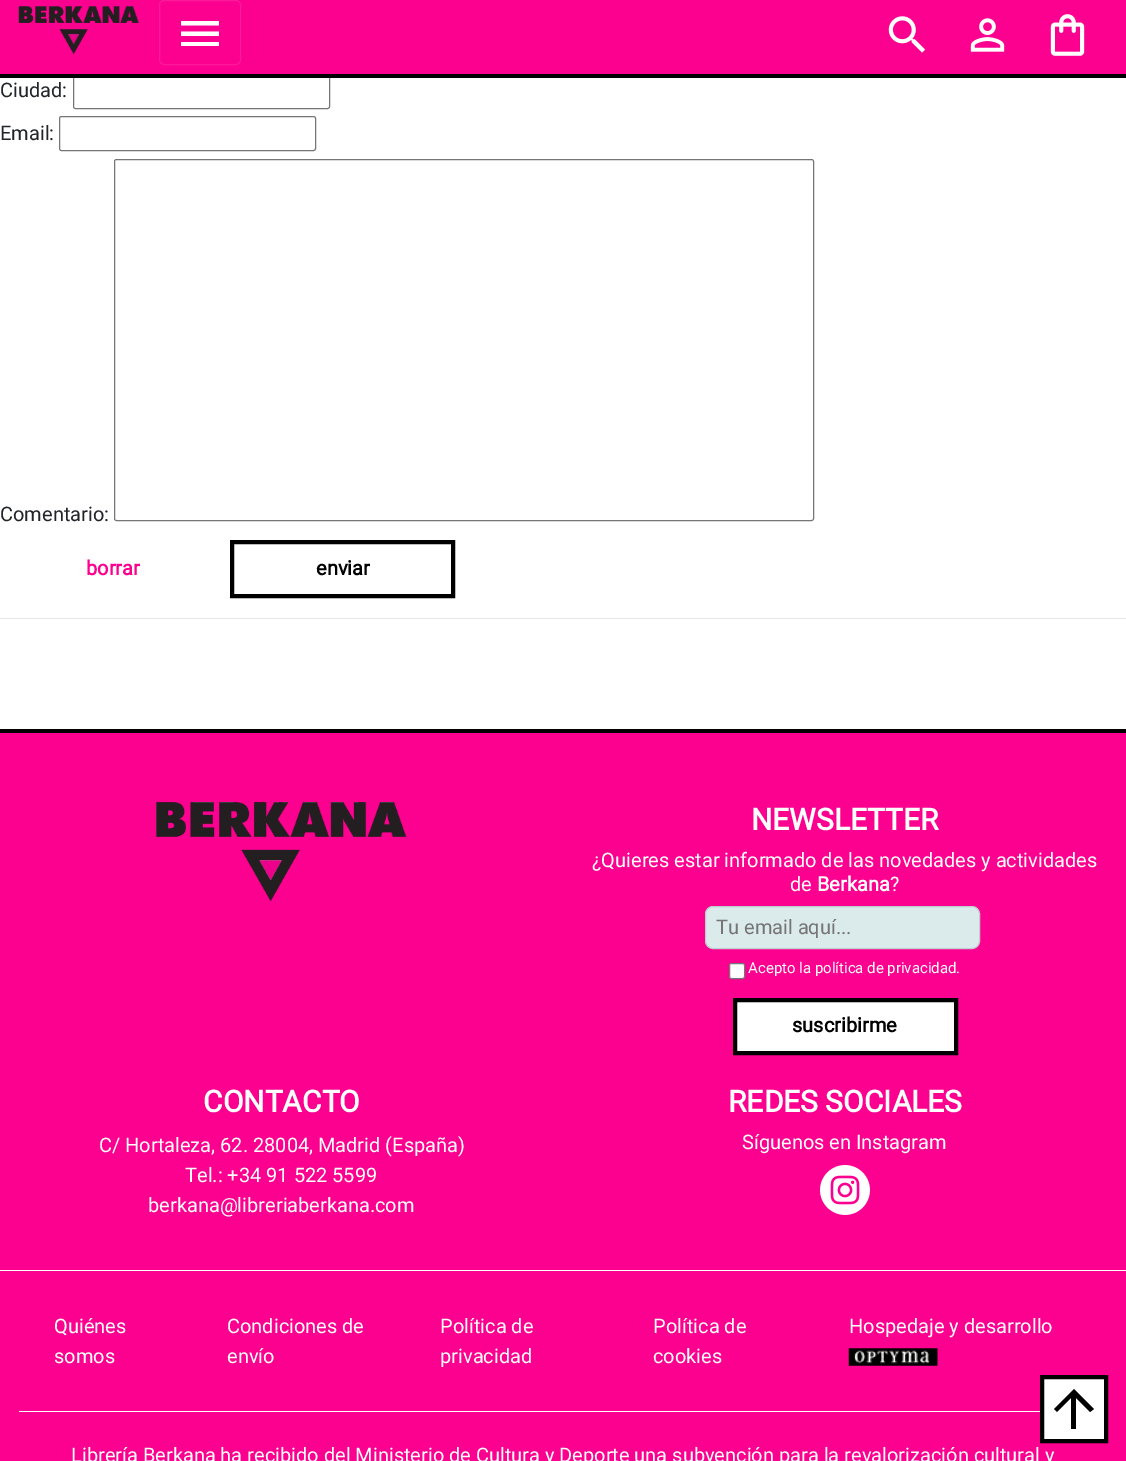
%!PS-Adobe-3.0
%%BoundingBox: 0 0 1126 1461
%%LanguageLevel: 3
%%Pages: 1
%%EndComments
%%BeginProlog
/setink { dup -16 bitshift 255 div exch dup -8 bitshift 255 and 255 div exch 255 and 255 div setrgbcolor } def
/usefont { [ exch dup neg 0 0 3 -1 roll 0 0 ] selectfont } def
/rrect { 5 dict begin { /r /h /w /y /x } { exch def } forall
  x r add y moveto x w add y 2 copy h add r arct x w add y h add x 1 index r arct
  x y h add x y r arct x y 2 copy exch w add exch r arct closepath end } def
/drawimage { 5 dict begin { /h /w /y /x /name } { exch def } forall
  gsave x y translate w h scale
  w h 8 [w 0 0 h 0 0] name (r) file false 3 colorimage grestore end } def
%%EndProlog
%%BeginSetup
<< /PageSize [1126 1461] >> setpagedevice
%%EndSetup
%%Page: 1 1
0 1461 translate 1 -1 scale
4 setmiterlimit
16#FFFFFF setink
0 0 1126 1461 rectfill
16#FC018F setink
0 0 1126 74 rectfill
16#767676 setink
73.5 74.5 256 34 2 rrect stroke
16#000000 setink
0 74 1126 4 rectfill
(img1.raw) 18 6 121 49 drawimage
16#FC1A9A setink
159.5 0.5 81 64 4.5 rrect stroke
16#FFFFFF setink
181 46 moveto 219 46 lineto 219 42 lineto 181 42 lineto closepath 181 36 moveto 219 36 lineto 219 31.5 lineto 181 31.5 lineto closepath 181 21 moveto 181 25.5 lineto 219 25.5 lineto 219 21 lineto closepath fill
(img2.raw) 888 16 38 37 drawimage
(img3.raw) 970 18 35 34 drawimage
(img4.raw) 1050 14 35 42 drawimage
/Roboto-Regular 20 usefont
16#212529 setink
0 97 moveto (Ciudad:) show
0 140 moveto (Email:) show
16#767676 setink
59.5 116.5 256 34 2 rrect stroke
16#212529 setink
0 521 moveto (Comentario:) show
16#767676 setink
114.5 159.5 699 361 2 rrect stroke
/Roboto-Bold 20 usefont
16#FC018F setink
86 575 moveto (borrar) show
16#000000 setink
4 setlinewidth
232 542 221 54 rectstroke
316 575 moveto (enviar) show
[
    [0 618 1126 1 16#E6E6E6]
    [0 733 1126 728 16#FC018F]
    [0 729 1126 4 16#000000]
    [0 1270 1126 1 16#FFFFFF]
] { aload pop setink rectfill } forall
(img5.raw) 156 802 251 99 drawimage
/Roboto-Bold 30 usefont
751 830 moveto (NEWSLETTER) show
/Roboto-Regular 20 usefont
592 867 moveto (¿Quieres estar informado de las novedades y actividades) show
790 891 moveto (de) show
/Roboto-Bold 20 usefont
817 891 moveto (Berkana) show
/Roboto-Regular 20 usefont
890 891 moveto (?) show
16#DBEBEB setink
705.5 906.5 274 42 7.5 rrect gsave fill grestore
16#BDCECE setink
1 setlinewidth
stroke
16#757575 setink
716 934 moveto (Tu email aquí...) show
16#FFFFFF setink
729.5 963.5 15 15 2 rrect gsave fill grestore
16#767676 setink
stroke
/Roboto-Regular 15 usefont
16#FFFFFF setink
748 973 moveto (Acepto la política de privacidad.) show
735 1000 moveto 956 1000 lineto 956 1053 lineto 735 1053 lineto closepath gsave fill grestore
16#000000 setink
4 setlinewidth
stroke
/Roboto-Bold 20 usefont
792 1032 moveto (suscribirme) show
/Roboto-Bold 30 usefont
16#FFFFFF setink
203 1112 moveto (CONTACTO) show
/Roboto-Regular 20 usefont
[
    [(C/ Hortaleza, 62. 28004, Madrid \(España\)) 99 1152]
    [(Tel.: +34 91 522 5599) 185 1182]
    [(berkana@libreriaberkana.com) 148 1212]
] { aload pop moveto show } forall
/Roboto-Bold 30 usefont
728 1112 moveto (REDES SOCIALES) show
/Roboto-Regular 20 usefont
742 1149 moveto (Síguenos en Instagram) show
(img6.raw) 820 1165 50 50 drawimage
1042 1377 moveto 1106 1377 lineto 1106 1441 lineto 1042 1441 lineto closepath gsave fill grestore
16#000000 setink
stroke
1054 1409 moveto 1057 1412 lineto 1071 1398 lineto 1071 1429 lineto 1076 1429 lineto 1076 1398 lineto 1090 1412 lineto 1094 1409 lineto 1074 1389 lineto closepath fill
16#FFFFFF setink
19 1411 1021 1 rectfill
[
    [(Quiénes) 54 1333]
    [(somos) 54 1363]
    [(Condiciones de) 227 1333]
    [(envío) 227 1363]
    [(Política de) 440 1333]
    [(privacidad) 440 1363]
    [(Política de) 653 1333]
    [(cookies) 653 1363]
    [(Hospedaje y desarrollo) 849 1333]
] { aload pop moveto show } forall
(img7.raw) 848 1348 90 18 drawimage
71 1462 moveto (Librería Berkana ha recibido del Ministerio de Cultura y Deporte una subvención para la revalorización cultural y) show
showpage
%%EOF
